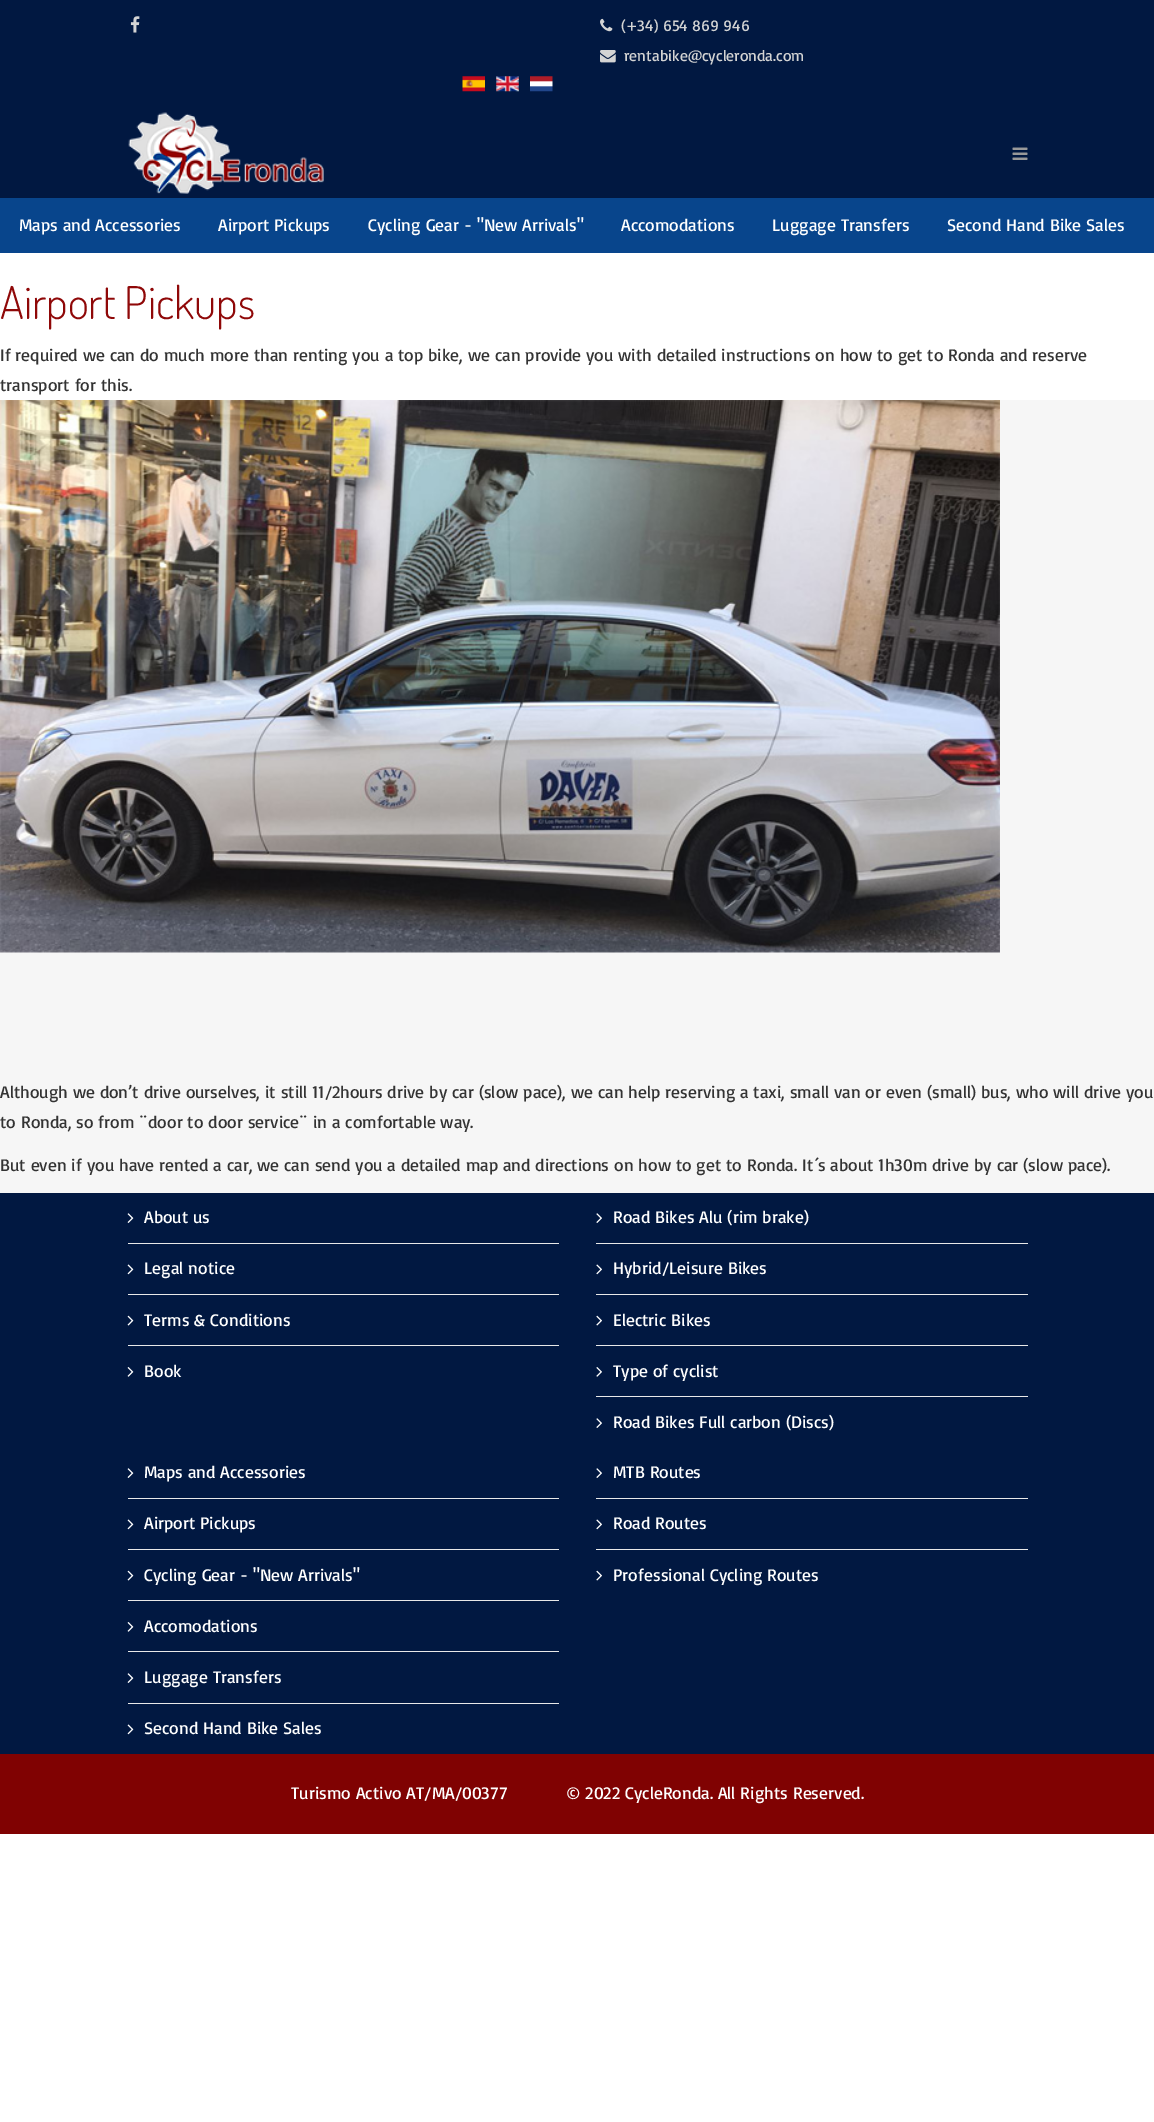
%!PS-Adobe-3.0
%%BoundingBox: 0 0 1154 2122
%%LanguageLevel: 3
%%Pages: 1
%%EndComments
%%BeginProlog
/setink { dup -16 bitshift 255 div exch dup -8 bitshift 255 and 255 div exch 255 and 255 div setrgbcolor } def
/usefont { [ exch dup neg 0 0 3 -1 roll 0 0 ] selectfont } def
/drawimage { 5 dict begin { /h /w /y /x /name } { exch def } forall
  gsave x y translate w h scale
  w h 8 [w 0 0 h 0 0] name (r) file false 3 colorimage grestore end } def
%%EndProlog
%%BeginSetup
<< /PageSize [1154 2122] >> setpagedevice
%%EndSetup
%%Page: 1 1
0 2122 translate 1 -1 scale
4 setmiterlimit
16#FFFFFF setink
0 0 1154 2122 rectfill
16#011841 setink
0 0 1154 198 rectfill
(img1.raw) 130 16 10 17 drawimage
(img2.raw) 600 18 13 14 drawimage
/Basic-Regular 15.75 usefont
16#D4D4D4 setink
621 31 moveto (\(+34\) 654 869 946) show
(img3.raw) 600 50 16 13 drawimage
624 61 moveto (rentabike@cycleronda.com) show
(img4.raw) 462 76 23 16 drawimage
(img5.raw) 496 76 23 16 drawimage
(img6.raw) 530 76 23 16 drawimage
(img7.raw) 128 112 196 82 drawimage
(img8.raw) 1012 147 16 13 drawimage
16#08458C setink
0 198 1154 55 rectfill
/Basic-Regular 17.5 usefont
16#FFFFFF setink
[
    [(Maps and Accessories) 19 231]
    [(Airport Pickups) 218 231]
    [(Cycling Gear - "New Arrivals") 368 231]
    [(Accomodations) 621 231]
    [(Luggage Transfers) 772 231]
    [(Second Hand Bike Sales) 947 231]
] { aload pop moveto show } forall
/Dosis-Light 45 usefont
16#8F0808 setink
0 319 moveto (Airport Pickups) show
/Basic-Regular 17.5 usefont
16#333333 setink
0 361 moveto (If required we can do much more than renting you a top bike, we can provide you with detailed instructions on how to get to Ronda and reserve) show
0 391 moveto (transport for this.) show
16#F6F6F6 setink
0 400 1154 793 rectfill
(img9.raw) 0 400 1000 553 drawimage
16#333333 setink
[
    [(Although we don’t drive ourselves, it still 11/2hours drive by car \(slow pace\), we can help reserving a taxi, small van or even \(small\) bus, who will drive you) 0 1098]
    [(to Ronda, so from ¨door to door service¨ in a comfortable way.) 0 1128]
    [(But even if you have rented a car, we can send you a detailed map and directions on how to get to Ronda. It´s about 1h30m drive by car \(slow pace\).) 0 1171]
] { aload pop moveto show } forall
16#011841 setink
0 1193 1154 561 rectfill
16#E8E8E8 setink
128 1243 431 1 rectfill
(img10.raw) 127 1213 7 10 drawimage
16#FFFFFF setink
144 1223 moveto (About us) show
16#E8E8E8 setink
128 1294 431 1 rectfill
(img11.raw) 127 1264 7 11 drawimage
16#FFFFFF setink
144 1274 moveto (Legal notice) show
16#E8E8E8 setink
128 1345 431 1 rectfill
(img12.raw) 127 1315 7 11 drawimage
16#FFFFFF setink
144 1326 moveto (Terms & Conditions) show
(img13.raw) 127 1367 7 10 drawimage
144 1377 moveto (Book) show
16#E8E8E8 setink
596 1243 432 1 rectfill
(img14.raw) 596 1213 6 10 drawimage
16#FFFFFF setink
613 1223 moveto (Road Bikes Alu \(rim brake\)) show
16#E8E8E8 setink
596 1294 432 1 rectfill
(img15.raw) 596 1264 6 11 drawimage
16#FFFFFF setink
613 1274 moveto (Hybrid/Leisure Bikes) show
16#E8E8E8 setink
596 1345 432 1 rectfill
(img16.raw) 596 1315 6 11 drawimage
16#FFFFFF setink
613 1326 moveto (Electric Bikes) show
16#E8E8E8 setink
596 1396 432 1 rectfill
(img17.raw) 596 1367 6 10 drawimage
16#FFFFFF setink
613 1377 moveto (Type of cyclist) show
(img14.raw) 596 1418 6 10 drawimage
613 1428 moveto (Road Bikes Full carbon \(Discs\)) show
16#E8E8E8 setink
128 1498 431 1 rectfill
(img10.raw) 127 1468 7 10 drawimage
16#FFFFFF setink
144 1478 moveto (Maps and Accessories) show
16#E8E8E8 setink
128 1549 431 1 rectfill
(img11.raw) 127 1519 7 11 drawimage
16#FFFFFF setink
144 1529 moveto (Airport Pickups) show
16#E8E8E8 setink
128 1600 431 1 rectfill
(img12.raw) 127 1570 7 11 drawimage
16#FFFFFF setink
144 1581 moveto (Cycling Gear - "New Arrivals") show
16#E8E8E8 setink
128 1651 431 1 rectfill
(img13.raw) 127 1622 7 10 drawimage
16#FFFFFF setink
144 1632 moveto (Accomodations) show
16#E8E8E8 setink
128 1703 431 1 rectfill
(img10.raw) 127 1673 7 10 drawimage
16#FFFFFF setink
144 1683 moveto (Luggage Transfers) show
(img11.raw) 127 1724 7 11 drawimage
144 1734 moveto (Second Hand Bike Sales) show
16#E8E8E8 setink
596 1498 432 1 rectfill
(img14.raw) 596 1468 6 10 drawimage
16#FFFFFF setink
613 1478 moveto (MTB Routes) show
16#E8E8E8 setink
596 1549 432 1 rectfill
(img15.raw) 596 1519 6 11 drawimage
16#FFFFFF setink
613 1529 moveto (Road Routes) show
(img16.raw) 596 1570 6 11 drawimage
613 1581 moveto (Professional Cycling Routes) show
16#800202 setink
0 1754 1154 80 rectfill
16#FFFFFF setink
291 1799 moveto (Turismo Activo AT/MA/00377) show
566 1799 moveto (© 2022 CycleRonda. All Rights Reserved.) show
showpage
%%EOF
